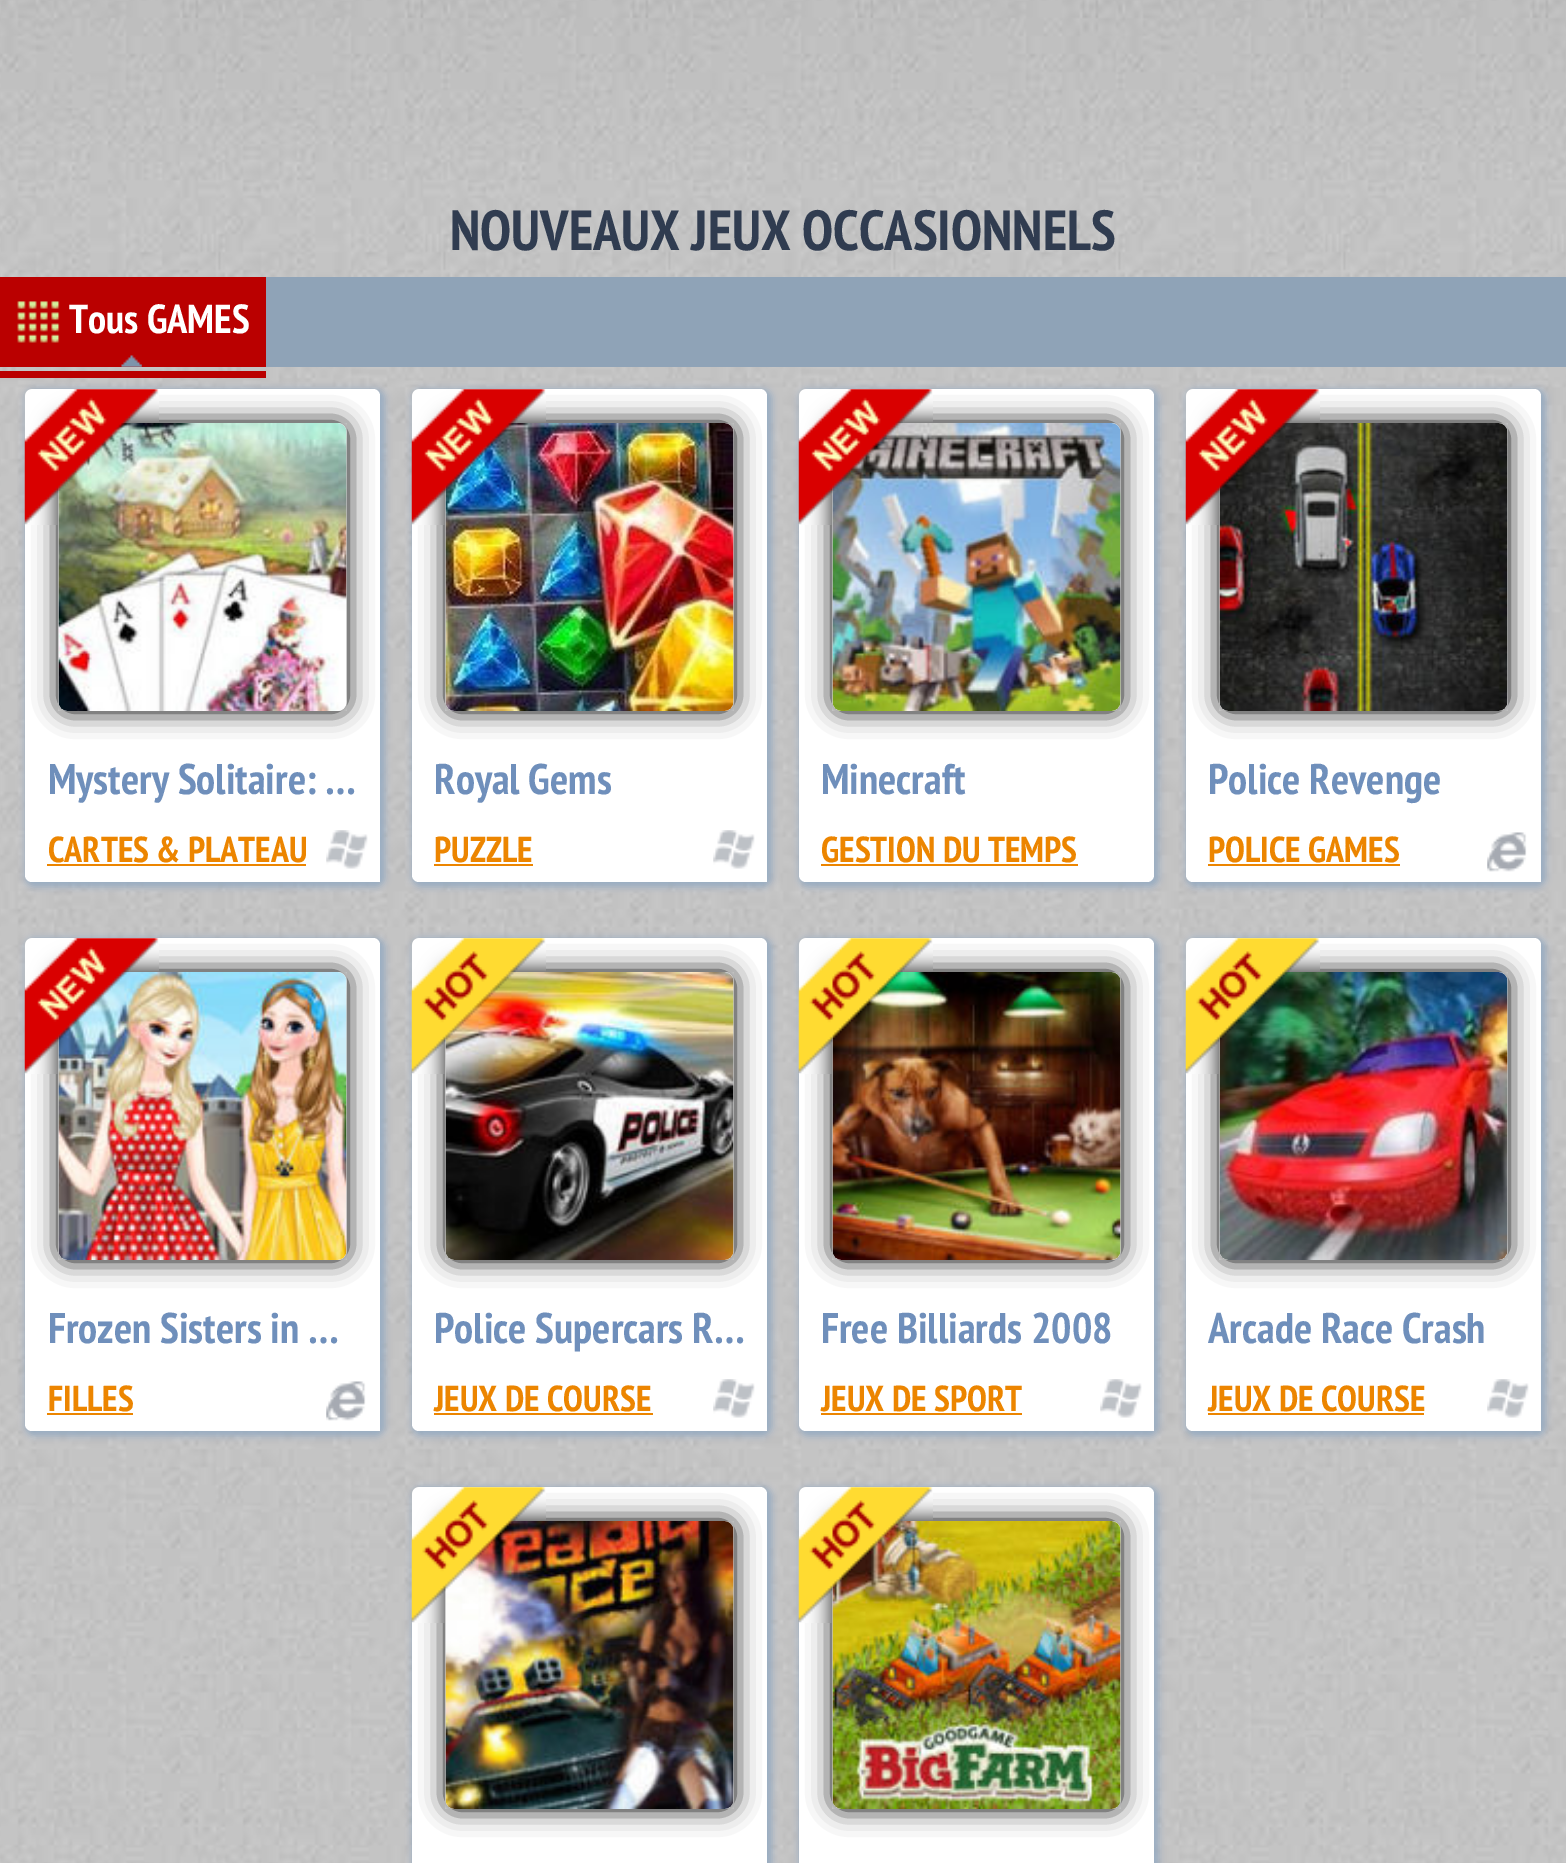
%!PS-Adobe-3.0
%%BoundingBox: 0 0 1566 1863
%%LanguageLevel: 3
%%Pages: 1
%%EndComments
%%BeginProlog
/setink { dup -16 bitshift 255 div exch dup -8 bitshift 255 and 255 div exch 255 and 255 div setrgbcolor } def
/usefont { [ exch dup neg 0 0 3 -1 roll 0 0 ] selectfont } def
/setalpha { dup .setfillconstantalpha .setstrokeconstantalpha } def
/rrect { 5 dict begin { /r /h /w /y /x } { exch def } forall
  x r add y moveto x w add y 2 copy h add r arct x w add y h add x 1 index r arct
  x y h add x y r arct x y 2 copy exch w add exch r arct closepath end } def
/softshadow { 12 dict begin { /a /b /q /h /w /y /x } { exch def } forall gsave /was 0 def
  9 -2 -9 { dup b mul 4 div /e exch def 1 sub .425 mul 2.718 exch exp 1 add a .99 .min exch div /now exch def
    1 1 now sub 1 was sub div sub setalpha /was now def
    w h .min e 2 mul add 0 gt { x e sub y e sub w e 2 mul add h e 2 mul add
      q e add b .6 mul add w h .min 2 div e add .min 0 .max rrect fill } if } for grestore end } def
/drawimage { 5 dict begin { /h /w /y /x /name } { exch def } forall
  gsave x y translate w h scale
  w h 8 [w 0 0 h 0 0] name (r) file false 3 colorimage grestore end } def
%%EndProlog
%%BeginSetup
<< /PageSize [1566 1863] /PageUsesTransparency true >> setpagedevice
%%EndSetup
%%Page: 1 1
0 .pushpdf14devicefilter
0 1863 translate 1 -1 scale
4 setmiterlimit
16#FFFFFF setink
0 0 1566 1863 rectfill
(img1.raw) 0 367 1566 1496 drawimage
(img2.raw) 0 0 1566 277 drawimage
/PTSansNarrow-Bold 56.25 usefont
16#303C50 setink
450 250 moveto (NOUVEAUX JEUX OCCASIONNELS) show
16#8FA3B7 setink
266 277 1300 90 rectfill
16#BA0000 setink
0 277 266 90 rectfill
(img3.raw) 121 355 21 12 drawimage
(img4.raw) 17 301 43 42 drawimage
/PTSansNarrow-Bold 40.5 usefont
16#FFFFFF setink
69 333 moveto (Tous GAMES) show
16#94AAC1 setink
25 389 360 498 9 3.5 0.9 softshadow
16#BA0000 setink
0 371 266 7 rectfill
16#FFFFFF setink
25 389 355 493 7 rrect fill
16#000000 setink
59 423 288 288 9 12.5 1 softshadow
(img5.raw) 58 423 289 288 drawimage
(img6.raw) 24 389 135 136 drawimage
/PTSansNarrow-Bold 42.75 usefont
16#6F8FBB setink
48 794 moveto (Mystery Solitaire: …) show
/PTSansNarrow-Bold 36 usefont
16#EC8500 setink
48 862 moveto (CARTES & PLATEAU) show
47 864 259 2 rectfill
16#FFFFFF setink
373 875 7 7 rectfill
(img7.raw) 326 830 42 39 drawimage
16#94AAC1 setink
412 389 360 498 9 3.5 0.9 softshadow
16#FFFFFF setink
412 389 355 493 7 rrect fill
16#000000 setink
446 423 288 288 9 12.5 1 softshadow
(img8.raw) 445 423 289 288 drawimage
(img9.raw) 411 389 135 136 drawimage
/PTSansNarrow-Bold 42.75 usefont
16#6F8FBB setink
434 794 moveto (Royal Gems) show
/PTSansNarrow-Bold 36 usefont
16#EC8500 setink
434 862 moveto (PUZZLE) show
434 864 99 2 rectfill
16#FFFFFF setink
760 875 7 7 rectfill
(img7.raw) 713 830 42 39 drawimage
16#94AAC1 setink
799 389 360 498 9 3.5 0.9 softshadow
16#FFFFFF setink
799 389 355 493 7 rrect fill
16#000000 setink
833 423 288 288 9 12.5 1 softshadow
(img10.raw) 832 423 289 288 drawimage
(img11.raw) 798 389 135 136 drawimage
/PTSansNarrow-Bold 42.75 usefont
16#6F8FBB setink
821 794 moveto (Minecraft) show
/PTSansNarrow-Bold 36 usefont
16#EC8500 setink
821 862 moveto (GESTION DU TEMPS) show
821 864 257 2 rectfill
16#94AAC1 setink
1186 389 360 498 9 3.5 0.9 softshadow
16#FFFFFF setink
1186 389 355 493 7 rrect fill
16#000000 setink
1220 423 288 288 9 12.5 1 softshadow
(img12.raw) 1219 423 289 288 drawimage
(img13.raw) 1185 389 135 136 drawimage
/PTSansNarrow-Bold 42.75 usefont
16#6F8FBB setink
1208 794 moveto (Police Revenge) show
/PTSansNarrow-Bold 36 usefont
16#EC8500 setink
1208 862 moveto (POLICE GAMES) show
1208 864 192 2 rectfill
16#FFFFFF setink
1534 875 7 7 rectfill
(img14.raw) 1487 832 40 40 drawimage
16#94AAC1 setink
25 938 360 498 9 3.5 0.9 softshadow
16#FFFFFF setink
25 938 355 493 7 rrect fill
16#000000 setink
59 972 288 288 9 12.5 1 softshadow
(img15.raw) 58 972 289 288 drawimage
(img16.raw) 24 938 135 136 drawimage
/PTSansNarrow-Bold 42.75 usefont
16#6F8FBB setink
48 1343 moveto (Frozen Sisters in …) show
/PTSansNarrow-Bold 36 usefont
16#EC8500 setink
48 1411 moveto (FILLES) show
47 1413 86 2 rectfill
16#FFFFFF setink
373 1424 7 7 rectfill
(img17.raw) 326 1381 40 40 drawimage
16#94AAC1 setink
412 938 360 498 9 3.5 0.9 softshadow
16#FFFFFF setink
412 938 355 493 7 rrect fill
16#000000 setink
446 972 288 288 9 12.5 1 softshadow
(img18.raw) 445 972 289 288 drawimage
(img19.raw) 411 938 135 136 drawimage
/PTSansNarrow-Bold 42.75 usefont
16#6F8FBB setink
434 1343 moveto (Police Supercars R…) show
/PTSansNarrow-Bold 36 usefont
16#EC8500 setink
434 1411 moveto (JEUX DE COURSE) show
434 1413 219 2 rectfill
16#FFFFFF setink
760 1424 7 7 rectfill
(img7.raw) 713 1379 42 39 drawimage
16#94AAC1 setink
799 938 360 498 9 3.5 0.9 softshadow
16#FFFFFF setink
799 938 355 493 7 rrect fill
16#000000 setink
833 972 288 288 9 12.5 1 softshadow
(img20.raw) 832 972 289 288 drawimage
(img21.raw) 798 938 135 136 drawimage
/PTSansNarrow-Bold 42.75 usefont
16#6F8FBB setink
821 1343 moveto (Free Billiards 2008) show
/PTSansNarrow-Bold 36 usefont
16#EC8500 setink
821 1411 moveto (JEUX DE SPORT) show
821 1413 201 2 rectfill
16#FFFFFF setink
1147 1424 7 7 rectfill
(img22.raw) 1100 1379 42 39 drawimage
16#94AAC1 setink
1186 938 360 498 9 3.5 0.9 softshadow
16#FFFFFF setink
1186 938 355 493 7 rrect fill
16#000000 setink
1220 972 288 288 9 12.5 1 softshadow
(img23.raw) 1219 972 289 288 drawimage
(img24.raw) 1185 938 135 136 drawimage
/PTSansNarrow-Bold 42.75 usefont
16#6F8FBB setink
1208 1343 moveto (Arcade Race Crash) show
/PTSansNarrow-Bold 36 usefont
16#EC8500 setink
1208 1411 moveto (JEUX DE COURSE) show
1208 1413 216 2 rectfill
16#FFFFFF setink
1534 1424 7 7 rectfill
(img25.raw) 1487 1379 42 39 drawimage
16#94AAC1 setink
412 1487 360 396 9 3.5 0.9 softshadow
16#FFFFFF setink
412 1487 355 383 7 rrect fill
16#000000 setink
446 1521 288 288 9 12.5 1 softshadow
(img26.raw) 445 1521 289 288 drawimage
(img27.raw) 411 1487 135 136 drawimage
16#94AAC1 setink
799 1487 360 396 9 3.5 0.9 softshadow
16#FFFFFF setink
799 1487 355 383 7 rrect fill
16#000000 setink
833 1521 288 288 9 12.5 1 softshadow
(img28.raw) 832 1521 289 288 drawimage
(img29.raw) 798 1487 135 136 drawimage
.poppdf14devicefilter showpage
%%EOF
